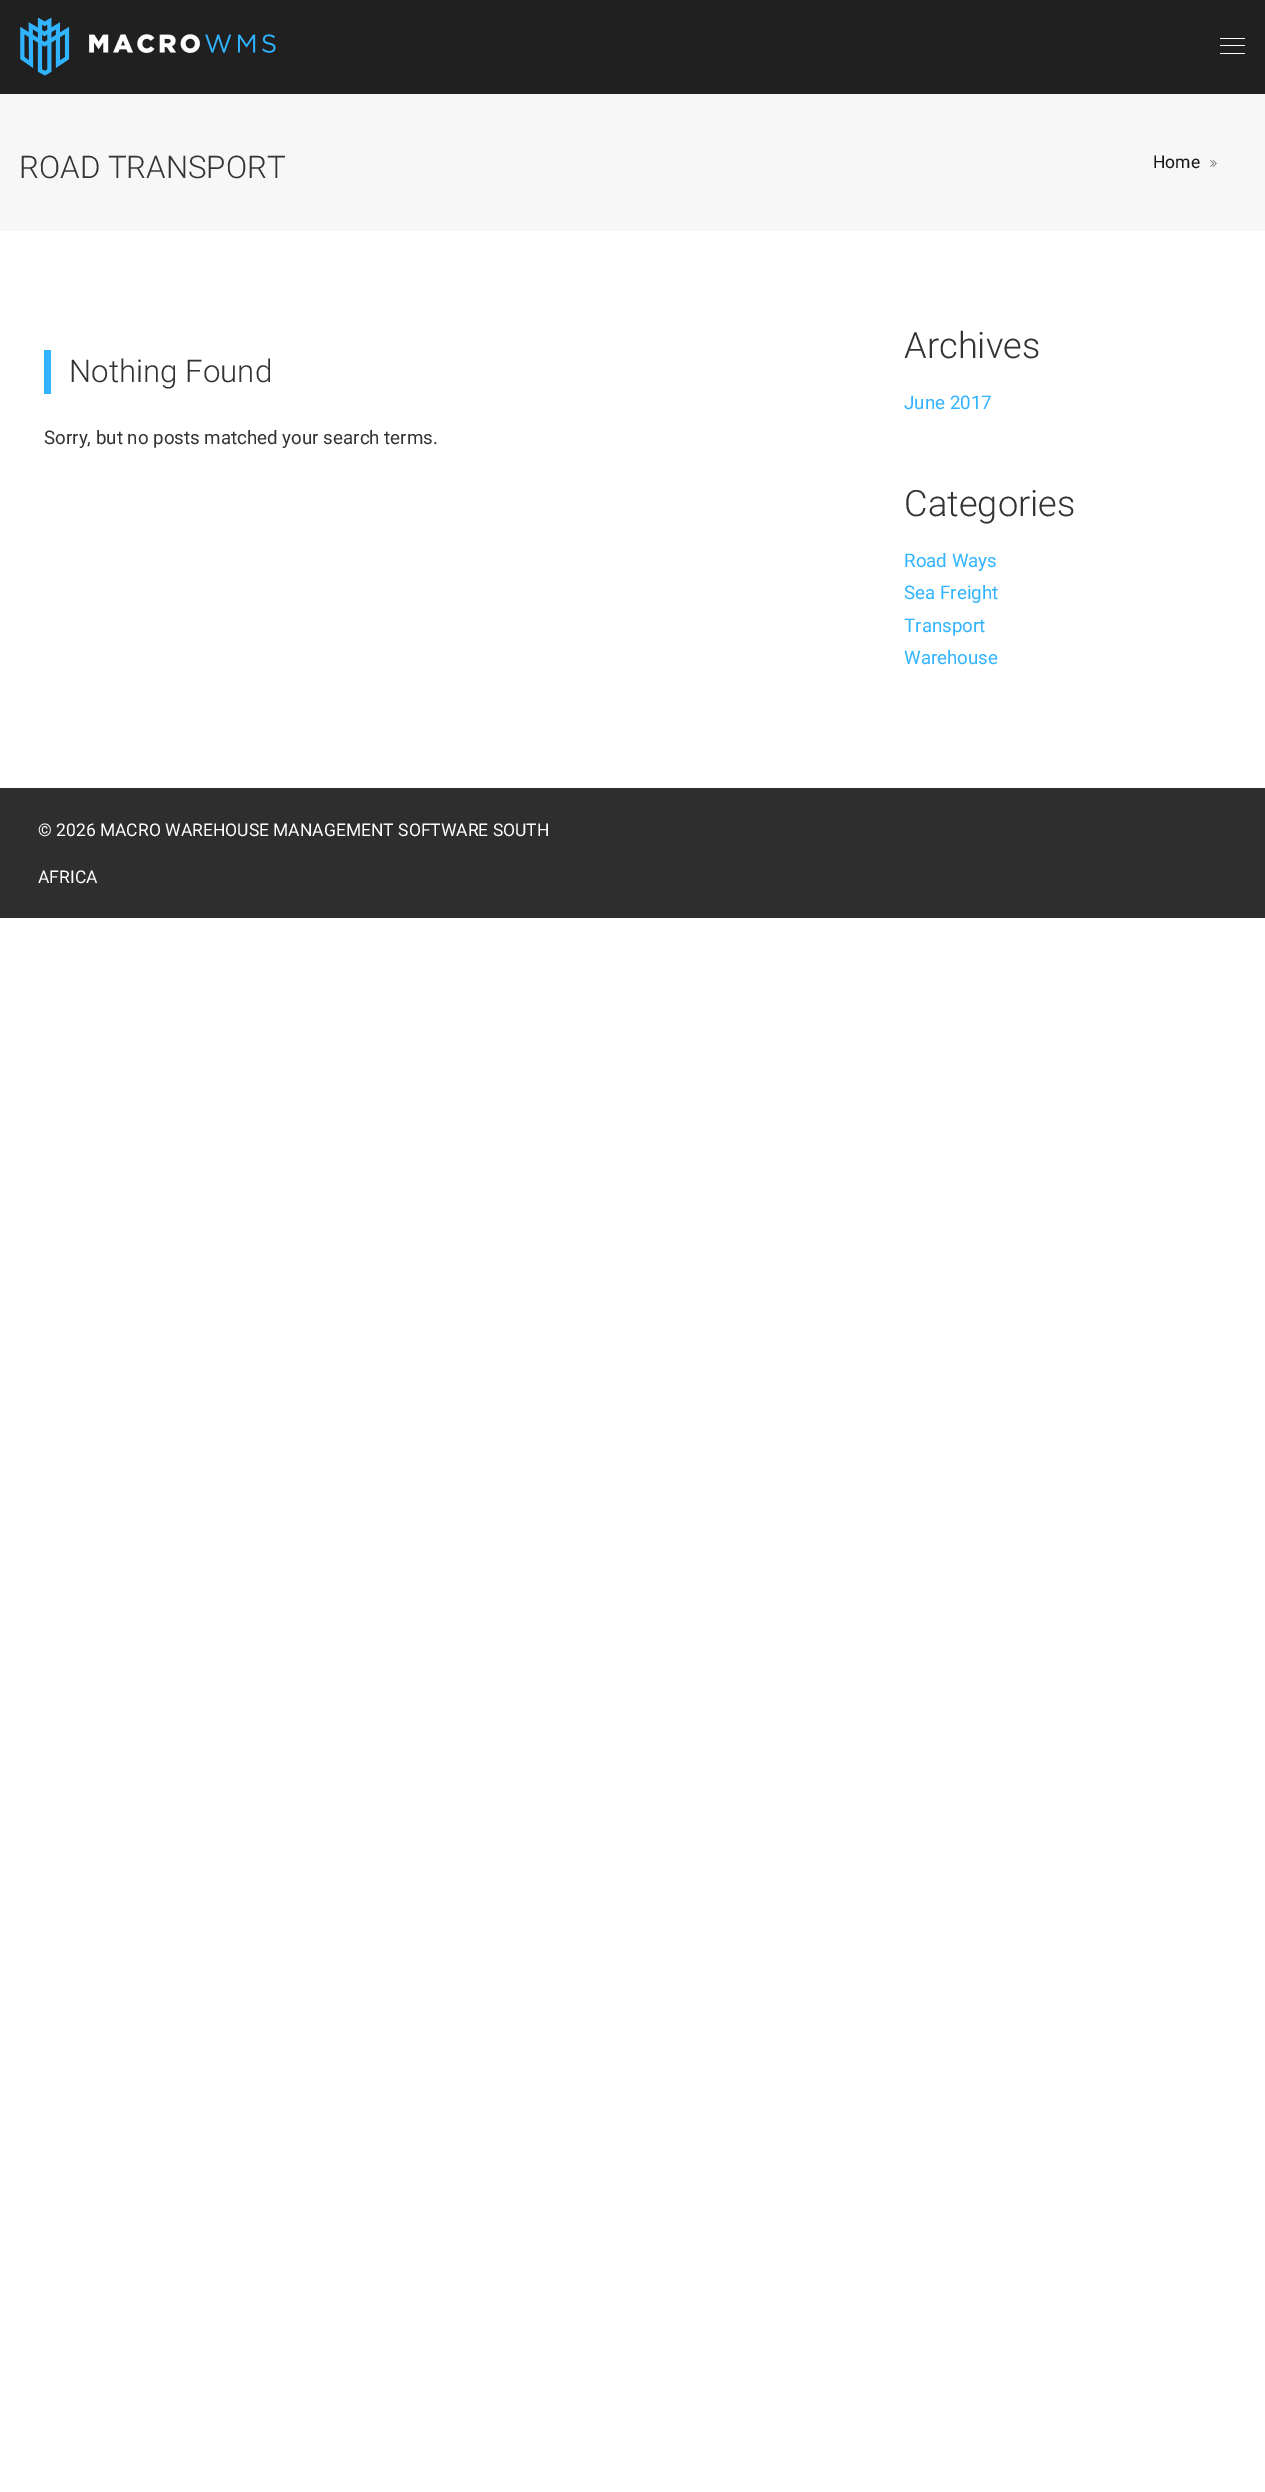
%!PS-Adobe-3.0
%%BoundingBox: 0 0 1265 2492
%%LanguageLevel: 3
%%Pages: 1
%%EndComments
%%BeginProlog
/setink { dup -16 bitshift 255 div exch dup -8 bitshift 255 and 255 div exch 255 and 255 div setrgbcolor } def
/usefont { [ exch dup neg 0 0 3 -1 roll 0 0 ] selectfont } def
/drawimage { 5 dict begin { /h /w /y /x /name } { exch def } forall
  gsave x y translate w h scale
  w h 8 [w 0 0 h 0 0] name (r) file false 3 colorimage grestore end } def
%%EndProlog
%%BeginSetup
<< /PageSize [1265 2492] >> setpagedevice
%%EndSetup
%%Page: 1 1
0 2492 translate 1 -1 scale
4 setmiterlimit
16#FFFFFF setink
0 0 1265 2492 rectfill
16#202020 setink
0 0 1265 94 rectfill
(img1.raw) 20 18 256 58 drawimage
[
    [1220 45 25 1 16#FFFFFF]
    [1220 38 25 1 16#FFFFFF]
    [1220 53 25 1 16#FFFFFF]
    [0 94 1265 137 16#F7F7F7]
] { aload pop setink rectfill } forall
/Roboto-Light 31.25 usefont
16#333333 setink
19 178 moveto (ROAD TRANSPORT) show
/Roboto-Regular 17.5 usefont
16#171717 setink
1153 168 moveto (Home) show
(img2.raw) 1210 160 7 7 drawimage
16#30B4FF setink
44 350 7 44 rectfill
/Roboto-Light 31.25 usefont
16#333333 setink
69 382 moveto (Nothing Found) show
/Roboto-Regular 18.75 usefont
44 444 moveto (Sorry, but no posts matched your search terms.) show
/Roboto-Light 36.25 usefont
904 358 moveto (Archives) show
/Roboto-Regular 18.75 usefont
16#30B4FF setink
904 409 moveto (June 2017) show
/Roboto-Light 36.25 usefont
16#333333 setink
904 516 moveto (Categories) show
/Roboto-Regular 18.75 usefont
16#30B4FF setink
[
    [(Road Ways) 904 567]
    [(Sea Freight) 904 599]
    [(Transport) 904 632]
    [(Warehouse) 904 664]
] { aload pop moveto show } forall
16#2E2E2E setink
0 788 1265 130 rectfill
/Roboto-Regular 17.5 usefont
16#FFFFFF setink
38 836 moveto (© 2026 MACRO WAREHOUSE MANAGEMENT SOFTWARE SOUTH) show
38 883 moveto (AFRICA) show
showpage
%%EOF
